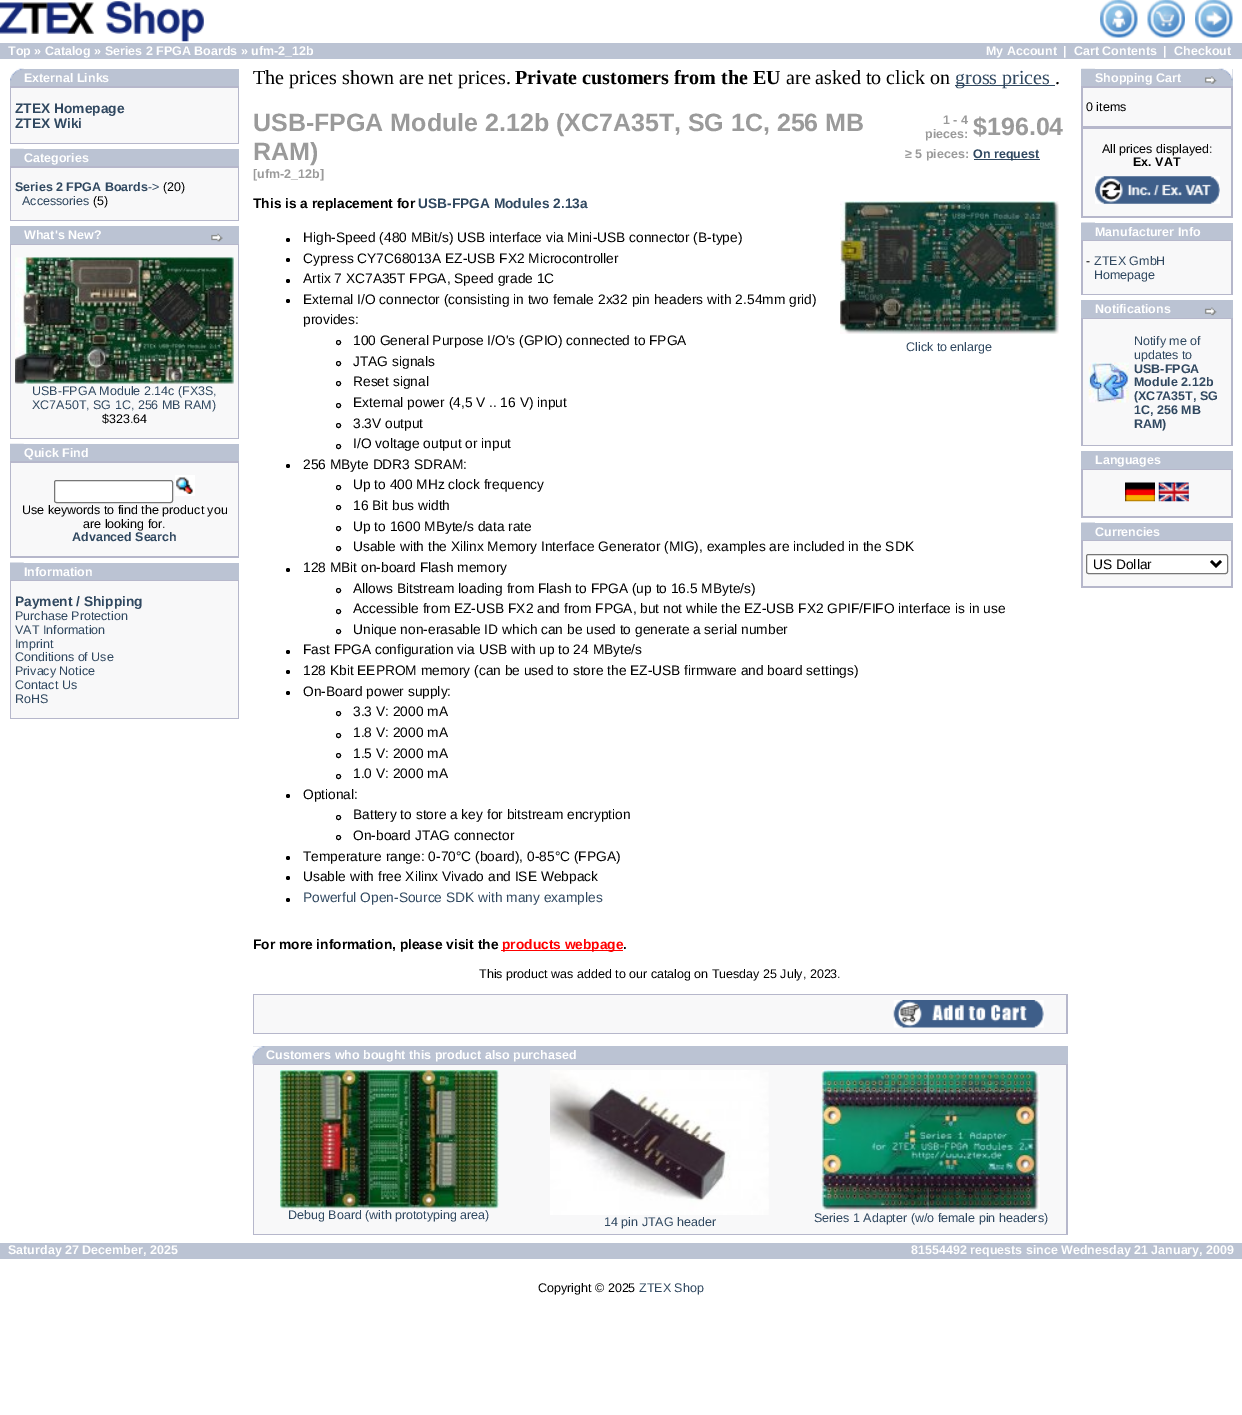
%!PS-Adobe-3.0
%%BoundingBox: 0 0 1242 1415
%%LanguageLevel: 3
%%Pages: 1
%%EndComments
%%BeginProlog
/setink { dup -16 bitshift 255 div exch dup -8 bitshift 255 and 255 div exch 255 and 255 div setrgbcolor } def
/usefont { [ exch dup neg 0 0 3 -1 roll 0 0 ] selectfont } def
/disc { newpath 0 360 arc closepath } def
/rrect { 5 dict begin { /r /h /w /y /x } { exch def } forall
  x r add y moveto x w add y 2 copy h add r arct x w add y h add x 1 index r arct
  x y h add x y r arct x y 2 copy exch w add exch r arct closepath end } def
/drawimage { 5 dict begin { /h /w /y /x /name } { exch def } forall
  gsave x y translate w h scale
  w h 8 [w 0 0 h 0 0] name (r) file false 3 colorimage grestore end } def
%%EndProlog
%%BeginSetup
<< /PageSize [1242 1415] >> setpagedevice
%%EndSetup
%%Page: 1 1
0 1415 translate 1 -1 scale
4 setmiterlimit
16#FFFFFF setink
0 0 1242 1415 rectfill
(img1.raw) 0 1 204 41 drawimage
(img2.raw) 1100 0 38 38 drawimage
(img3.raw) 1147 0 38 38 drawimage
(img4.raw) 1195 0 38 38 drawimage
16#BBC3D3 setink
0 43 1242 16 rectfill
/LiberationSans-Bold 12.5 usefont
16#FFFFFF setink
[
    [(Top » Catalog » Series 2 FPGA Boards » ufm-2_12b) 8 55]
    [(My Account) 986 55]
    [(|) 1063 55]
    [(Cart Contents) 1074 55]
    [(|) 1163 55]
    [(Checkout) 1174 55]
] { aload pop moveto show } forall
16#BBC3D3 setink
10 69 229 17 rectfill
(img5.raw) 10 68 14 13 drawimage
16#FFFFFF setink
24 82 moveto (External Links) show
16#B6B7CB setink
10 86 229 58 rectfill
16#F8F8F9 setink
11 88 227 55 rectfill
/LiberationSans-Bold 13.75 usefont
16#304860 setink
15 113 moveto (ZTEX Homepage) show
15 128 moveto (ZTEX Wiki) show
16#BBC3D3 setink
10 149 229 17 rectfill
(img6.raw) 10 148 14 1 drawimage
/LiberationSans-Bold 12.5 usefont
16#FFFFFF setink
24 162 moveto (Categories) show
16#B6B7CB setink
10 166 229 55 rectfill
16#F8F8F9 setink
11 168 227 52 rectfill
16#304860 setink
15 191 moveto (Series 2 FPGA Boards) show
/LiberationSans-Regular 12.5 usefont
148 191 moveto (->) show
16#000000 setink
163 191 moveto (\(20\)) show
16#304860 setink
22 205 moveto (Accessories) show
16#000000 setink
93 205 moveto (\(5\)) show
16#BBC3D3 setink
10 226 229 18 rectfill
/LiberationSans-Bold 12.5 usefont
16#FFFFFF setink
24 239 moveto (What's New?) show
(img7.raw) 211 233 12 9 drawimage
16#B6B7CB setink
10 244 229 195 rectfill
16#F8F8F9 setink
11 245 227 193 rectfill
(img8.raw) 15 257 219 127 drawimage
/LiberationSans-Regular 12.5 usefont
16#304860 setink
32 395 moveto (USB-FPGA Module 2.14c \(FX3S,) show
32 409 moveto (XC7A50T, SG 1C, 256 MB RAM\)) show
16#000000 setink
102 423 moveto ($323.64) show
16#BBC3D3 setink
10 444 229 17 rectfill
(img6.raw) 10 443 14 1 drawimage
/LiberationSans-Bold 12.5 usefont
16#FFFFFF setink
24 457 moveto (Quick Find) show
16#B6B7CB setink
10 461 229 97 rectfill
16#F8F8F9 setink
11 463 227 93 rectfill
16#FFFFFF setink
54.5 480.5 118 22 2 rrect gsave fill grestore
16#767676 setink
stroke
(img9.raw) 175 475 20 21 drawimage
/LiberationSans-Regular 12.5 usefont
16#000000 setink
22 514 moveto (Use keywords to find the product you) show
83 528 moveto (are looking for.) show
/LiberationSans-Bold 12.5 usefont
16#304860 setink
72 541 moveto (Advanced Search) show
16#BBC3D3 setink
10 563 229 17 rectfill
(img10.raw) 10 562 14 1 drawimage
16#FFFFFF setink
24 576 moveto (Information) show
16#B6B7CB setink
10 580 229 139 rectfill
16#F8F8F9 setink
11 581 227 137 rectfill
/LiberationSans-Bold 13.75 usefont
16#304860 setink
15 606 moveto (Payment / Shipping) show
/LiberationSans-Regular 12.5 usefont
[
    [(Purchase Protection) 15 620]
    [(VAT Information) 15 634]
    [(Imprint) 15 648]
    [(Conditions of Use) 15 661]
    [(Privacy Notice) 15 675]
    [(Contact Us) 15 689]
    [(RoHS) 15 703]
] { aload pop moveto show } forall
/LiberationSerif-Regular 20 usefont
16#000000 setink
253 84 moveto (The prices shown are net prices.) show
/LiberationSerif-Bold 20 usefont
515 84 moveto (Private customers from the EU) show
/LiberationSerif-Regular 20 usefont
786 84 moveto (are asked to click on) show
16#304860 setink
955 85 100 1 rectfill
955 84 moveto (gross prices) show
16#000000 setink
1055 84 moveto (.) show
/LiberationSans-Bold 25 usefont
16#9A9A9A setink
253 131 moveto (USB-FPGA Module 2.12b \(XC7A35T, SG 1C, 256 MB) show
253 160 moveto (RAM\)) show
/LiberationSans-Bold 12.5 usefont
[
    [([ufm-2_12b]) 253 178]
    [(1 - 4) 943 124]
    [(pieces:) 925 138]
] { aload pop moveto show } forall
/LiberationSans-Bold 25 usefont
973 135 moveto ($196.04) show
/LiberationSans-Bold 12.5 usefont
905 158 moveto (≥ 5 pieces:) show
16#304860 setink
974 159 66 1 rectfill
973 158 moveto (On request) show
/LiberationSans-Bold 13.75 usefont
16#000000 setink
253 208 moveto (This is a replacement for) show
16#304860 setink
418 208 moveto (USB-FPGA Modules 2.13a) show
16#000000 setink
288 240 2 disc fill
/LiberationSans-Regular 13.75 usefont
303 242 moveto (High-Speed \(480 MBit/s\) USB interface via Mini-USB connector \(B-type\)) show
288 260 2 disc fill
303 263 moveto (Cypress CY7C68013A EZ-USB FX2 Microcontroller) show
288 281 2 disc fill
303 283 moveto (Artix 7 XC7A35T FPGA, Speed grade 1C) show
288 301 2 disc fill
303 304 moveto (External I/O connector \(consisting in two female 2x32 pin headers with 2.54mm grid\)) show
303 324 moveto (provides:) show
338.5 342.5 2 disc stroke
353 345 moveto (100 General Purpose I/O's \(GPIO\) connected to FPGA) show
338.5 363.5 2 disc stroke
353 366 moveto (JTAG signals) show
338.5 383.5 2 disc stroke
353 386 moveto (Reset signal) show
338.5 405.5 2 disc stroke
353 407 moveto (External power \(4,5 V .. 16 V\) input) show
338.5 425.5 2 disc stroke
353 428 moveto (3.3V output) show
338.5 446.5 2 disc stroke
353 448 moveto (I/O voltage output or input) show
288 466 2 disc fill
303 469 moveto (256 MByte DDR3 SDRAM:) show
338.5 487.5 2 disc stroke
353 489 moveto (Up to 400 MHz clock frequency) show
338.5 507.5 2 disc stroke
353 510 moveto (16 Bit bus width) show
338.5 528.5 2 disc stroke
353 531 moveto (Up to 1600 MByte/s data rate) show
338.5 548.5 2 disc stroke
353 551 moveto (Usable with the Xilinx Memory Interface Generator \(MIG\), examples are included in the SDK) show
288 570 2 disc fill
303 572 moveto (128 MBit on-board Flash memory) show
338.5 590.5 2 disc stroke
353 593 moveto (Allows Bitstream loading from Flash to FPGA \(up to 16.5 MByte/s\)) show
338.5 611.5 2 disc stroke
353 613 moveto (Accessible from EZ-USB FX2 and from FPGA, but not while the EZ-USB FX2 GPIF/FIFO interface is in use) show
338.5 631.5 2 disc stroke
353 634 moveto (Unique non-erasable ID which can be used to generate a serial number) show
288 652 2 disc fill
303 654 moveto (Fast FPGA configuration via USB with up to 24 MByte/s) show
288 672 2 disc fill
303 675 moveto (128 Kbit EEPROM memory \(can be used to store the EZ-USB firmware and board settings\)) show
288 693 2 disc fill
303 696 moveto (On-Board power supply:) show
338.5 713.5 2 disc stroke
353 716 moveto (3.3 V: 2000 mA) show
338.5 735.5 2 disc stroke
353 737 moveto (1.8 V: 2000 mA) show
338.5 755.5 2 disc stroke
353 758 moveto (1.5 V: 2000 mA) show
338.5 776.5 2 disc stroke
353 778 moveto (1.0 V: 2000 mA) show
288 796 2 disc fill
303 799 moveto (Optional:) show
338.5 817.5 2 disc stroke
353 819 moveto (Battery to store a key for bitstream encryption) show
338.5 837.5 2 disc stroke
353 840 moveto (On-board JTAG connector) show
288 858 2 disc fill
303 861 moveto (Temperature range: 0-70°C \(board\), 0-85°C \(FPGA\)) show
288 878 2 disc fill
303 881 moveto (Usable with free Xilinx Vivado and ISE Webpack) show
288 900 2 disc fill
16#304860 setink
303 902 moveto (Powerful Open-Source SDK with many examples) show
(img11.raw) 840 201 219 133 drawimage
/LiberationSans-Regular 12.5 usefont
906 351 moveto (Click to enlarge) show
/LiberationSans-Bold 13.75 usefont
16#000000 setink
253 949 moveto (For more information, please visit the) show
16#FF0000 setink
501 950 122 1 rectfill
502 949 moveto (products webpage) show
16#000000 setink
623 949 moveto (.) show
/LiberationSans-Regular 12.5 usefont
479 978 moveto (This product was added to our catalog on Tuesday 25 July, 2023.) show
16#B6B7CB setink
253 994 815 40 rectfill
16#F8F8F9 setink
254 995 812 38 rectfill
(img12.raw) 893 1000 151 28 drawimage
16#BBC3D3 setink
253 1046 815 18 rectfill
(img13.raw) 252 1046 13 18 drawimage
/LiberationSans-Bold 12.5 usefont
16#FFFFFF setink
266 1059 moveto (Customers who bought this product also purchased) show
16#B6B7CB setink
253 1064 815 171 rectfill
16#F8F8F9 setink
254 1065 812 169 rectfill
(img14.raw) 280 1070 219 139 drawimage
/LiberationSans-Regular 12.5 usefont
16#304860 setink
288 1219 moveto (Debug Board \(with prototyping area\)) show
(img15.raw) 550 1070 219 145 drawimage
604 1226 moveto (14 pin JTAG header) show
(img16.raw) 821 1070 219 141 drawimage
814 1222 moveto (Series 1 Adapter \(w/o female pin headers\)) show
16#BBC3D3 setink
1081 69 152 17 rectfill
(img17.raw) 1081 68 14 1 drawimage
/LiberationSans-Bold 12.5 usefont
16#FFFFFF setink
1095 82 moveto (Shopping Cart) show
(img18.raw) 1204 76 13 8 drawimage
(img19.raw) 1218 68 15 13 drawimage
16#B6B7CB setink
1081 86 152 132 rectfill
16#F8F8F9 setink
1083 88 148 38 rectfill
/LiberationSans-Regular 12.5 usefont
16#000000 setink
1086 111 moveto (0 items) show
16#F8F8F9 setink
1083 129 148 87 rectfill
16#000000 setink
1102 153 moveto (All prices displayed:) show
/LiberationSans-Bold 12.5 usefont
1133 166 moveto (Ex. VAT) show
(img20.raw) 1095 176 125 28 drawimage
16#BBC3D3 setink
1081 223 152 17 rectfill
(img21.raw) 1081 222 14 1 drawimage
16#FFFFFF setink
1095 236 moveto (Manufacturer Info) show
16#B6B7CB setink
1081 240 152 55 rectfill
16#F8F8F9 setink
1083 241 148 53 rectfill
/LiberationSans-Regular 12.5 usefont
16#000000 setink
1086 265 moveto (-) show
16#304860 setink
1094 265 moveto (ZTEX GmbH) show
1094 279 moveto (Homepage) show
16#BBC3D3 setink
1081 300 152 18 rectfill
/LiberationSans-Bold 12.5 usefont
16#FFFFFF setink
1095 313 moveto (Notifications) show
(img22.raw) 1204 307 13 9 drawimage
16#B6B7CB setink
1081 318 152 128 rectfill
16#F8F8F9 setink
1083 319 148 126 rectfill
(img23.raw) 1088 362 41 41 drawimage
/LiberationSans-Regular 12.5 usefont
16#304860 setink
1134 345 moveto (Notify me of) show
1134 359 moveto (updates to) show
/LiberationSans-Bold 12.5 usefont
[
    [(USB-FPGA) 1134 373]
    [(Module 2.12b) 1134 386]
    [(\(XC7A35T, SG) 1134 400]
    [(1C, 256 MB) 1134 414]
    [(RAM\)) 1134 428]
] { aload pop moveto show } forall
16#BBC3D3 setink
1081 451 152 18 rectfill
16#FFFFFF setink
1095 464 moveto (Languages) show
16#B6B7CB setink
1081 469 152 49 rectfill
16#F8F8F9 setink
1083 470 148 46 rectfill
(img24.raw) 1125 482 30 20 drawimage
(img25.raw) 1158 482 31 20 drawimage
16#BBC3D3 setink
1081 523 152 17 rectfill
(img21.raw) 1081 522 14 1 drawimage
16#FFFFFF setink
1095 536 moveto (Currencies) show
16#B6B7CB setink
1081 540 152 48 rectfill
16#F8F8F9 setink
1083 541 148 45 rectfill
16#FFFFFF setink
1086.5 554.5 141 19 2 rrect gsave fill grestore
16#767676 setink
stroke
16#000000 setink
2.5 setlinewidth
1211 561 moveto 1216 566 lineto 1221 561 lineto stroke
/LiberationSans-Regular 13.75 usefont
1093 569 moveto (US Dollar) show
16#BBC3D3 setink
0 1243 1242 16 rectfill
/LiberationSans-Bold 12.5 usefont
16#FFFFFF setink
8 1254 moveto (Saturday 27 December, 2025) show
911 1254 moveto (81554492 requests since Wednesday 21 January, 2009) show
/LiberationSans-Regular 12.5 usefont
16#000000 setink
538 1292 moveto (Copyright © 2025) show
16#304860 setink
639 1292 moveto (ZTEX Shop) show
showpage
%%EOF
